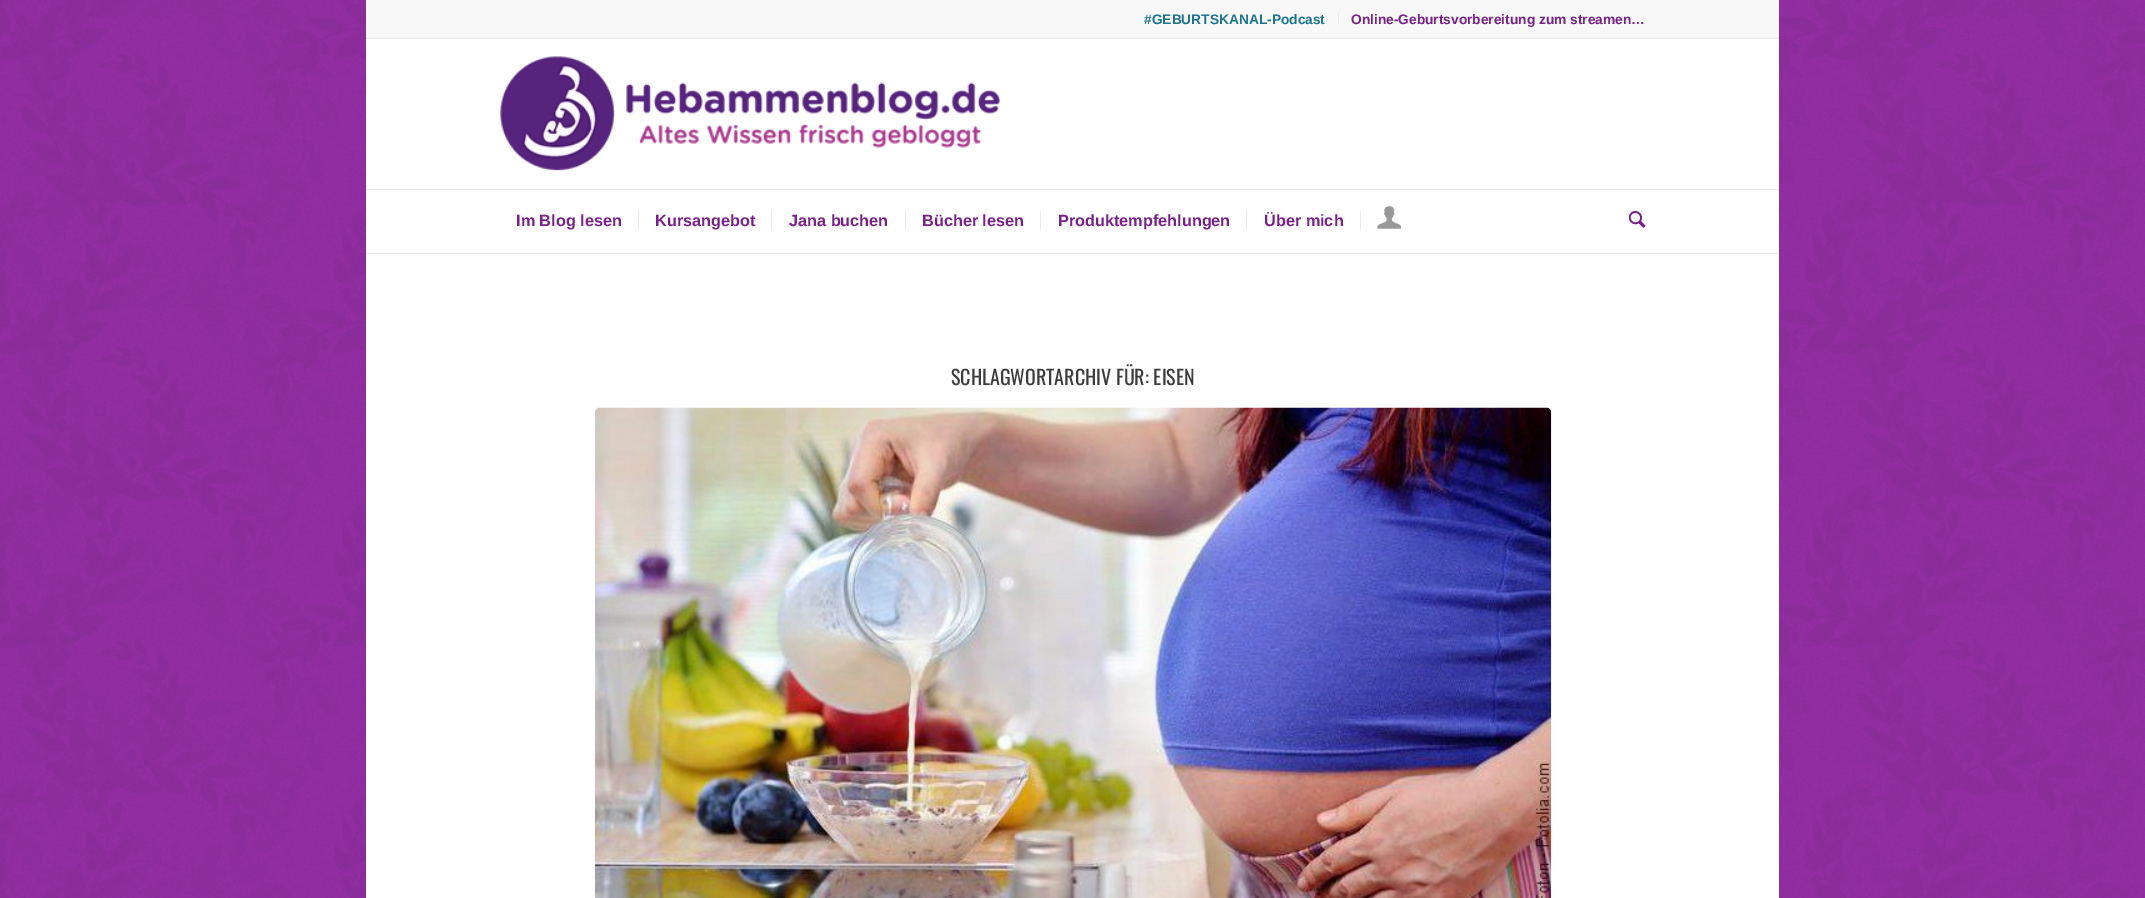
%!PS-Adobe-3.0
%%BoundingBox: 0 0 2145 898
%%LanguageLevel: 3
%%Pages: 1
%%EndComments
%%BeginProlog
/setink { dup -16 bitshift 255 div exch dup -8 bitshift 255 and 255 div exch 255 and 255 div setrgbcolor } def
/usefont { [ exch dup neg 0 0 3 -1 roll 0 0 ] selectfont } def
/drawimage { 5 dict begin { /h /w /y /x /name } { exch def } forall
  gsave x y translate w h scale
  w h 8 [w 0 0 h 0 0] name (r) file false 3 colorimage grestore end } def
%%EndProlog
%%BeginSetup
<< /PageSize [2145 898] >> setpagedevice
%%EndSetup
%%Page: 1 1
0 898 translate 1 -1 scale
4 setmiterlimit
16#9C30AD setink
0 0 2145 898 rectfill
(img1.raw) 0 0 2145 898 drawimage
[
    [366 0 1413 38 16#F8F8F8]
    [366 38 1413 1 16#EBEBEB]
    [1338 13 1 12 16#EBEBEB]
] { aload pop setink rectfill } forall
/LiberationSans-Bold 13.75 usefont
16#1E7493 setink
1144 24 moveto (#GEBURTSKANAL-Podcast) show
16#7A208A setink
1351 24 moveto (Online-Geburtsvorbereitung zum streamen…) show
16#FFFFFF setink
366 39 1413 859 rectfill
16#EBEBEB setink
366 253 1413 1 rectfill
(img2.raw) 500 56 500 115 drawimage
366 189 1413 1 rectfill
/LiberationSans-Bold 16.25 usefont
16#7A208A setink
516 226 moveto (Im Blog lesen) show
655 226 moveto (Kursangebot) show
16#EBEBEB setink
638 211 1 19 rectfill
16#7A208A setink
789 226 moveto (Jana buchen) show
16#EBEBEB setink
771 211 1 19 rectfill
16#7A208A setink
922 226 moveto (Bücher lesen) show
16#EBEBEB setink
905 211 1 19 rectfill
16#7A208A setink
1058 226 moveto (Produktempfehlungen) show
16#EBEBEB setink
1040 211 1 19 rectfill
16#7A208A setink
1264 226 moveto (Über mich) show
16#EBEBEB setink
1246 211 1 19 rectfill
1360 211 1 19 rectfill
(img3.raw) 1377 206 24 23 drawimage
(img4.raw) 1629 211 17 17 drawimage
/Oswald-Regular 20 usefont
16#3C3C3C setink
951 385 moveto (SCHLAGWORTARCHIV FÜR: EISEN) show
(img5.raw) 595 407 957 491 drawimage
showpage
%%EOF
